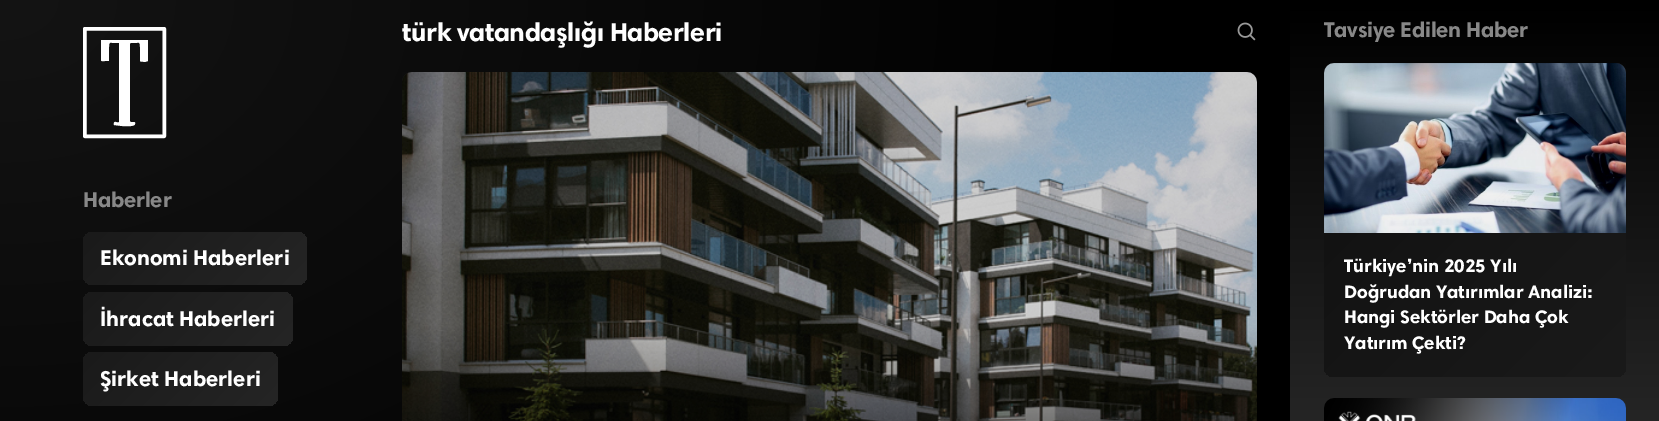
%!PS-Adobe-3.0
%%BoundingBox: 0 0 1659 421
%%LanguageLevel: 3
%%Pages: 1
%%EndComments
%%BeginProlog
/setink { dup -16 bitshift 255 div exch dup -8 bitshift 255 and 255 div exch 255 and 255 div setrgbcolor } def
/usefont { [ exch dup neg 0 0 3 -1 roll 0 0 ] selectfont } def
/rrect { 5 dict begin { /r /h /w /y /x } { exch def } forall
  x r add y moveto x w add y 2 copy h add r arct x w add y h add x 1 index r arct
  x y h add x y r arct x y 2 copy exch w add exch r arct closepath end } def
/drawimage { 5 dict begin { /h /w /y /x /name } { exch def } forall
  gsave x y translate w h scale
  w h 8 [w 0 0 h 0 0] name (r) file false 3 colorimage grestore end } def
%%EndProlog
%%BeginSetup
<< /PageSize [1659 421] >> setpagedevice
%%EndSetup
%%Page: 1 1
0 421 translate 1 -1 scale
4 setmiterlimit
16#FFFFFF setink
0 0 1659 421 rectfill
gsave 0 0 moveto 1290 0 lineto 1290 421 lineto 0 421 lineto closepath clip newpath 0 0 translate 2346 1629 scale
<< /ShadingType 3 /ColorSpace /DeviceRGB /Coords [0 0 0 0 0 1] /Extend [true true] /Function << /FunctionType 3 /Domain [0 1] /Functions [<< /FunctionType 2 /Domain [0 1] /C0 [0.078 0.078 0.078] /C1 [0 0 0] /N 1 >> << /FunctionType 2 /Domain [0 1] /C0 [0 0 0] /C1 [0 0 0] /N 1 >>] /Bounds [0.5] /Encode [0 1 0 1] >> >> shfill grestore
3.5 setlinewidth
84.75 28.75 79.5 107.5 0.25 rrect stroke
148 40 moveto 148 61 lineto 145 62 lineto 140 61 140 63 140 58 curveto 140 47 lineto 140 41 139 43 133 43 curveto 132 43 130 42 130 44 curveto 130 121 lineto 130 124 136 120 135 124 curveto 135 127 124 126 122 126 curveto 114 125 lineto 113 119 118 124 119 122 curveto 119 43 lineto 116 43 lineto 110 43 109 41 109 47 curveto 109 61 lineto 105 61 lineto 101 61 101 62 101 57 curveto 101 40 lineto closepath fill
/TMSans-Bold 21.5 usefont
16#888888 setink
83 207 moveto -0.25 0 (Haberler) ashow
gsave 83 232 224 53 10 rrect clip newpath
<< /ShadingType 2 /ColorSpace /DeviceRGB /Coords [126 189 264 328] /Extend [true true] /Function << /FunctionType 2 /Domain [0 1] /C0 [0.102 0.102 0.102] /C1 [0.145 0.145 0.145] /N 1 >> >> shfill grestore
16#FFFFFF setink
100 265 moveto (Ekonomi Haberleri) show
gsave 83 292 210 54 10 rrect clip newpath
<< /ShadingType 2 /ColorSpace /DeviceRGB /Coords [122 253 254 385] /Extend [true true] /Function << /FunctionType 2 /Domain [0 1] /C0 [0.102 0.102 0.102] /C1 [0.145 0.145 0.145] /N 1 >> >> shfill grestore
100 326 moveto (İhracat Haberleri) show
gsave 83 352 195 54 10 rrect clip newpath
<< /ShadingType 2 /ColorSpace /DeviceRGB /Coords [118 317 243 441] /Extend [true true] /Function << /FunctionType 2 /Domain [0 1] /C0 [0.102 0.102 0.102] /C1 [0.145 0.145 0.145] /N 1 >> >> shfill grestore
100 386 moveto (Şirket Haberleri) show
/TMSans-Bold 25.9 usefont
402 41 moveto -0.4 0 (türk vatandaşlığı Haberleri) ashow
(img1.raw) 1237 22 19 19 drawimage
gsave 402 72 855 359 10 rrect clip newpath
<< /ShadingType 2 /ColorSpace /DeviceRGB /Coords [495 -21 1164 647] /Extend [true true] /Function << /FunctionType 2 /Domain [0 1] /C0 [0.102 0.102 0.102] /C1 [0.145 0.145 0.145] /N 1 >> >> shfill grestore
(img2.raw) 402 72 855 349 drawimage
gsave 1290 0 moveto 1659 0 lineto 1659 421 lineto 1290 421 lineto closepath clip newpath
<< /ShadingType 2 /ColorSpace /DeviceRGB /Coords [1475 0 1475 421] /Extend [true true] /Function << /FunctionType 2 /Domain [0 1] /C0 [0 0 0] /C1 [0.145 0.145 0.145] /N 1 >> >> shfill grestore
/TMSans-Bold 21.5 usefont
16#888888 setink
1324 37 moveto -0.25 0 (Tavsiye Edilen Haber) ashow
gsave 1324 63 302 314 10 rrect clip newpath
<< /ShadingType 2 /ColorSpace /DeviceRGB /Coords [1321 66 1629 374] /Extend [true true] /Function << /FunctionType 2 /Domain [0 1] /C0 [0.059 0.059 0.059] /C1 [0.102 0.102 0.102] /N 1 >> >> shfill grestore
gsave 1334 63 moveto 1616 63 lineto 1621.5 63 1626 67.5 1626 73 curveto 1626 233 lineto 1324 233 lineto 1324 73 lineto 1324 67.5 1328.5 63 1334 63 curveto closepath clip newpath
<< /ShadingType 2 /ColorSpace /DeviceRGB /Coords [1357 30 1593 266] /Extend [true true] /Function << /FunctionType 2 /Domain [0 1] /C0 [0.102 0.102 0.102] /C1 [0.145 0.145 0.145] /N 1 >> >> shfill grestore
(img3.raw) 1324 63 302 170 drawimage
/TMSans-Bold 18.25 usefont
16#FFFFFF setink
[
    [(Türkiye’nin 2025 Yılı) 1344 272]
    [(Doğrudan Yatırımlar Analizi:) 1344 298]
    [(Hangi Sektörler Daha Çok) 1344 323]
    [(Yatırım Çekti?) 1344 349]
] { aload pop moveto show } forall
(img4.raw) 1324 398 302 23 drawimage
showpage
%%EOF
